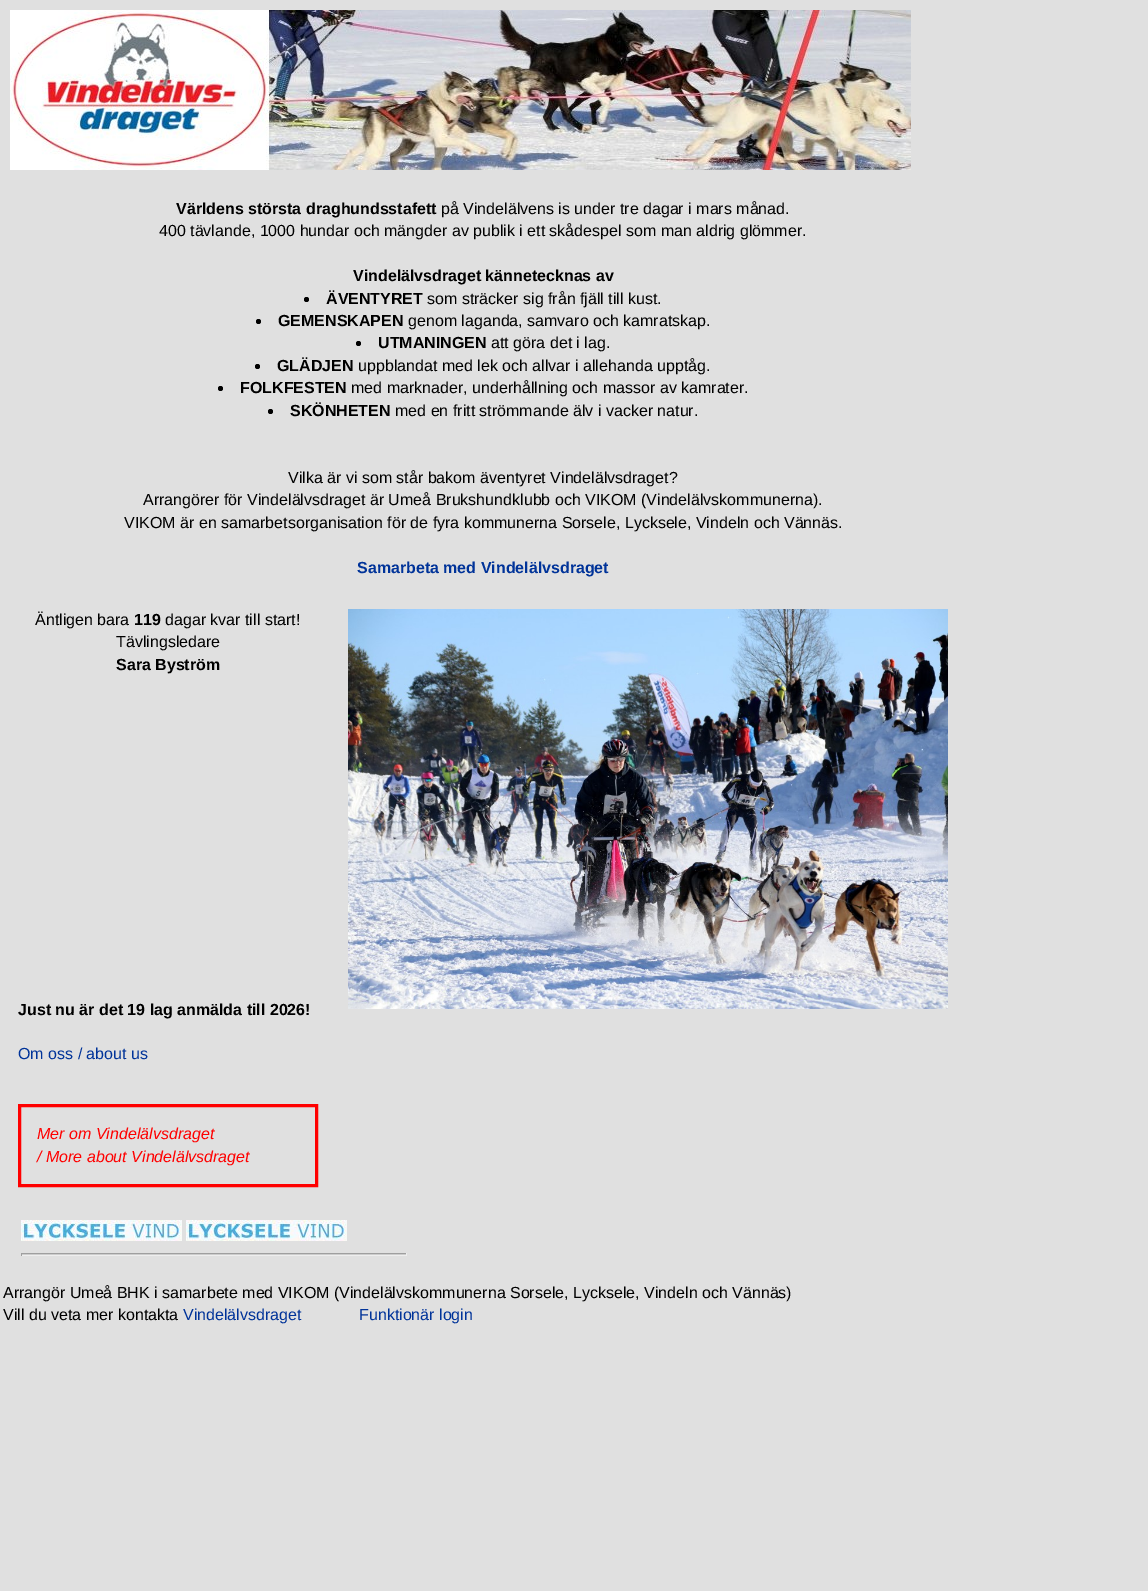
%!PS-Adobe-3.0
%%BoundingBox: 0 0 1148 1591
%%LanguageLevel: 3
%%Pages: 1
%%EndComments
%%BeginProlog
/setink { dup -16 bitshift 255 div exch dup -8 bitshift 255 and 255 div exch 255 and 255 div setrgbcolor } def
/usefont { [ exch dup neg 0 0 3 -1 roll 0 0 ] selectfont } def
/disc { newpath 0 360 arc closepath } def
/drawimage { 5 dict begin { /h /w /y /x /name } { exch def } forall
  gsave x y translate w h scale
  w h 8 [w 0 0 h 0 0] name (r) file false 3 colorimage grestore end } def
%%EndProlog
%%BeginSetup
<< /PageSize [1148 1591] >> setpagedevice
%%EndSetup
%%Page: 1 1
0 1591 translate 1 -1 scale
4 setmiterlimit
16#E0E0E0 setink
0 0 1148 1591 rectfill
(img1.raw) 10 10 901 160 drawimage
/LiberationSans-Bold 16 usefont
16#000000 setink
176 214 moveto (Världens största draghundsstafett) show
/LiberationSans-Regular 16 usefont
441 214 moveto (på Vindelälvens is under tre dagar i mars månad.) show
159 236 moveto (400 tävlande, 1000 hundar och mängder av publik i ett skådespel som man aldrig glömmer.) show
/LiberationSans-Bold 16 usefont
353 281 moveto (Vindelälvsdraget kännetecknas av) show
306.5 299.5 2.5 disc fill
326 304 moveto (ÄVENTYRET) show
/LiberationSans-Regular 16 usefont
427 304 moveto (som sträcker sig från fjäll till kust.) show
258.5 321.5 2.5 disc fill
/LiberationSans-Bold 16 usefont
278 326 moveto (GEMENSKAPEN) show
/LiberationSans-Regular 16 usefont
408 326 moveto (genom laganda, samvaro och kamratskap.) show
358.5 343.5 2.5 disc fill
/LiberationSans-Bold 16 usefont
378 348 moveto (UTMANINGEN) show
/LiberationSans-Regular 16 usefont
491 348 moveto (att göra det i lag.) show
257.5 366.5 2.5 disc fill
/LiberationSans-Bold 16 usefont
277 371 moveto (GLÄDJEN) show
/LiberationSans-Regular 16 usefont
358 371 moveto (uppblandat med lek och allvar i allehanda upptåg.) show
220.5 388.5 2.5 disc fill
/LiberationSans-Bold 16 usefont
240 393 moveto (FOLKFESTEN) show
/LiberationSans-Regular 16 usefont
351 393 moveto (med marknader, underhållning och massor av kamrater.) show
270.5 411.5 2.5 disc fill
/LiberationSans-Bold 16 usefont
290 416 moveto (SKÖNHETEN) show
/LiberationSans-Regular 16 usefont
[
    [(med en fritt strömmande älv i vacker natur.) 395 416]
    [(Vilka är vi som står bakom äventyret Vindelälvsdraget?) 288 483]
    [(Arrangörer för Vindelälvsdraget är Umeå Brukshundklubb och VIKOM \(Vindelälvskommunerna\).) 143 505]
    [(VIKOM är en samarbetsorganisation för de fyra kommunerna Sorsele, Lycksele, Vindeln och Vännäs.) 124 528]
] { aload pop moveto show } forall
/LiberationSans-Bold 16 usefont
16#003399 setink
357 573 moveto (Samarbeta med Vindelälvsdraget) show
/LiberationSans-Regular 16 usefont
16#000000 setink
35 625 moveto (Äntligen bara) show
/LiberationSans-Bold 16 usefont
134 625 moveto (119) show
/LiberationSans-Regular 16 usefont
165 625 moveto (dagar kvar till start!) show
116 647 moveto (Tävlingsledare) show
/LiberationSans-Bold 16 usefont
116 670 moveto (Sara Byström) show
18 1015 moveto (Just nu är det 19 lag anmälda till 2026!) show
/LiberationSans-Regular 16 usefont
16#003399 setink
18 1059 moveto (Om oss / about us) show
16#FF0000 setink
3 setlinewidth
19.5 1105.5 297 80 rectstroke
/LiberationSans-Italic 16 usefont
37 1139 moveto (Mer om Vindelälvsdraget) show
37 1162 moveto (/ More about Vindelälvsdraget) show
(img2.raw) 348 609 600 400 drawimage
(img3.raw) 21 1220 161 21 drawimage
(img3.raw) 186 1220 161 21 drawimage
[
    [21 1254 386 1 16#CCCCCC]
    [21 1253 386 1 16#9F9F9F]
    [406 1253 1 3 16#EEEEEE]
    [21 1255 386 1 16#EEEEEE]
    [21 1253 1 3 16#9F9F9F]
] { aload pop setink rectfill } forall
/LiberationSans-Regular 16 usefont
16#000000 setink
3 1298 moveto (Arrangör Umeå BHK i samarbete med VIKOM \(Vindelälvskommunerna Sorsele, Lycksele, Vindeln och Vännäs\)) show
3 1320 moveto (Vill du veta mer kontakta) show
16#003399 setink
183 1320 moveto (Vindelälvsdraget) show
359 1320 moveto (Funktionär login) show
showpage
%%EOF
